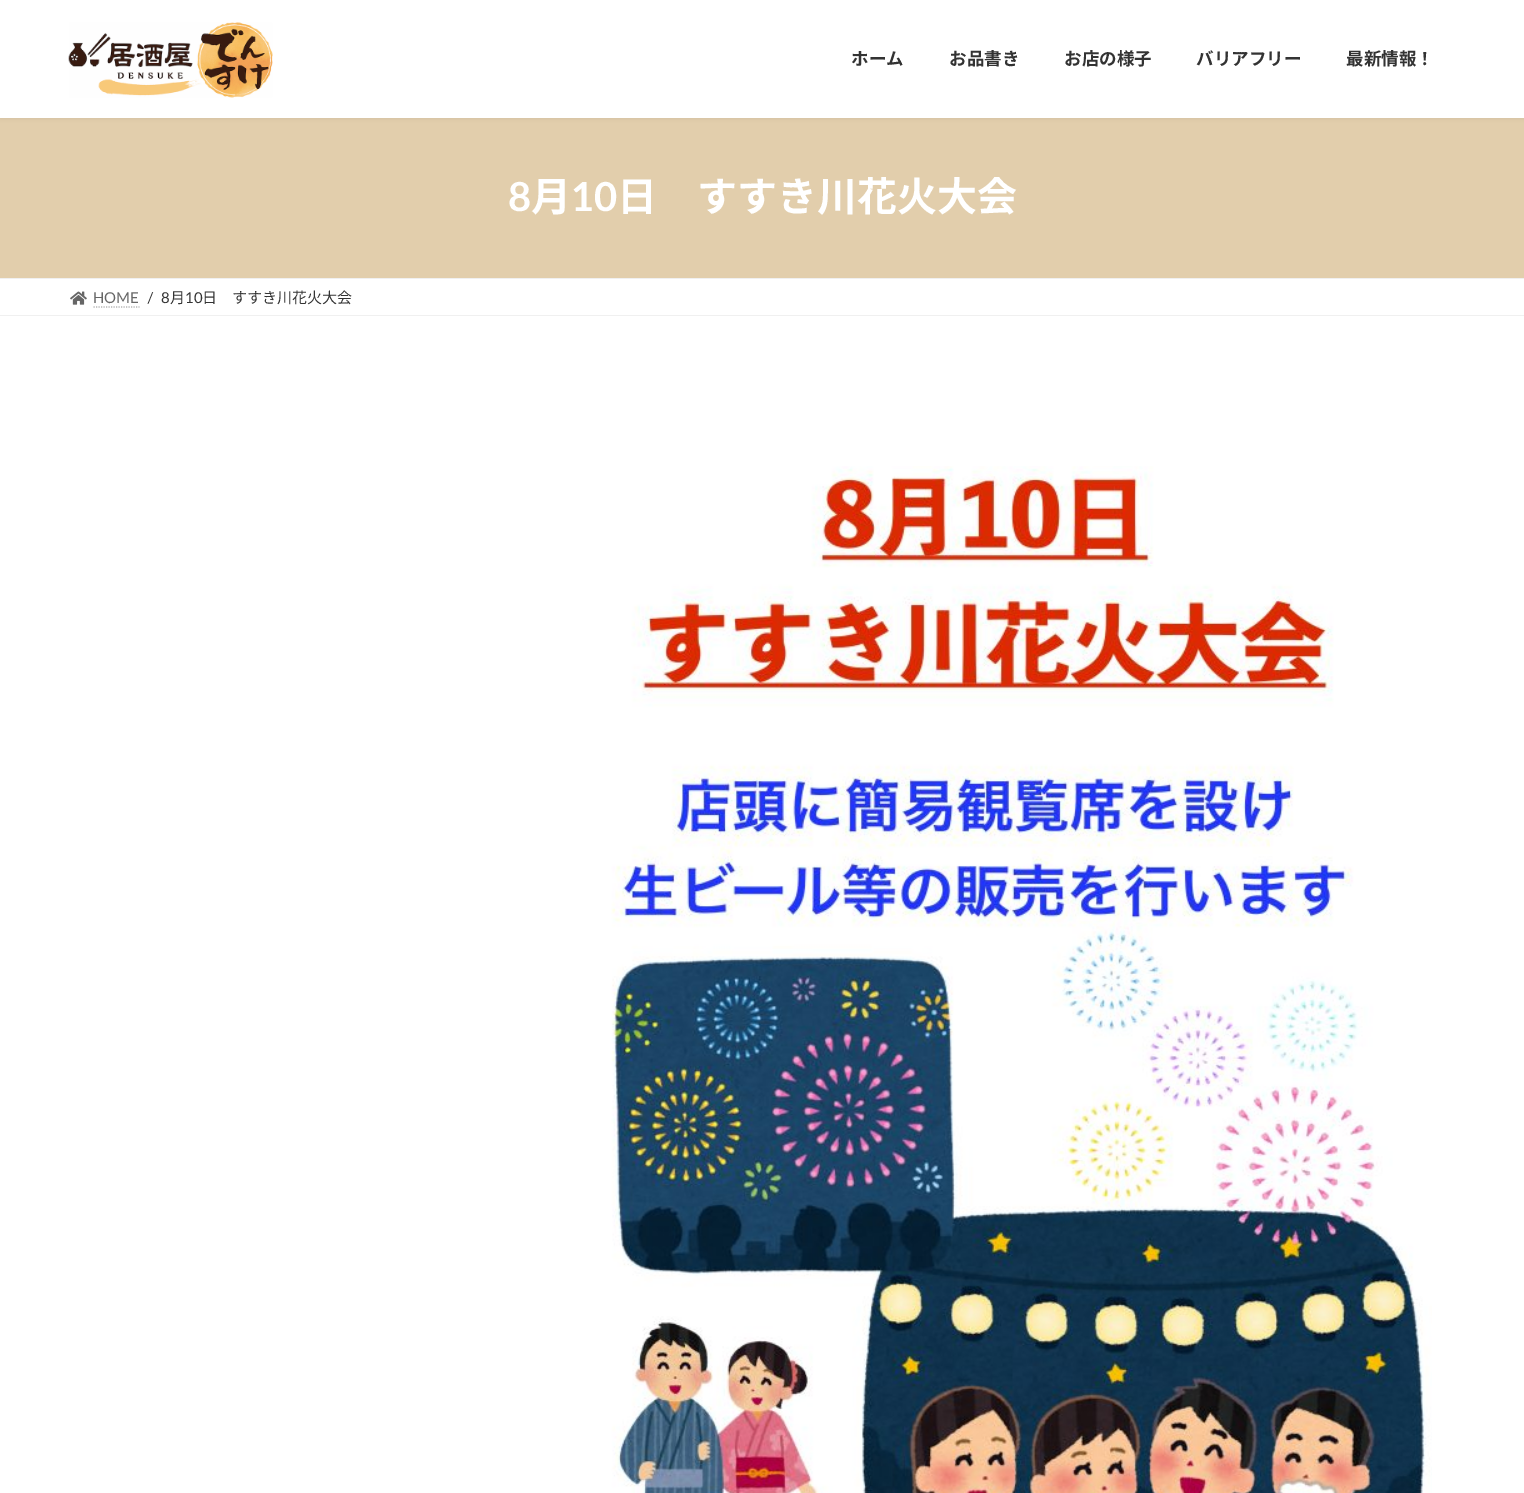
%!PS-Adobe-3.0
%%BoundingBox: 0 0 1524 1493
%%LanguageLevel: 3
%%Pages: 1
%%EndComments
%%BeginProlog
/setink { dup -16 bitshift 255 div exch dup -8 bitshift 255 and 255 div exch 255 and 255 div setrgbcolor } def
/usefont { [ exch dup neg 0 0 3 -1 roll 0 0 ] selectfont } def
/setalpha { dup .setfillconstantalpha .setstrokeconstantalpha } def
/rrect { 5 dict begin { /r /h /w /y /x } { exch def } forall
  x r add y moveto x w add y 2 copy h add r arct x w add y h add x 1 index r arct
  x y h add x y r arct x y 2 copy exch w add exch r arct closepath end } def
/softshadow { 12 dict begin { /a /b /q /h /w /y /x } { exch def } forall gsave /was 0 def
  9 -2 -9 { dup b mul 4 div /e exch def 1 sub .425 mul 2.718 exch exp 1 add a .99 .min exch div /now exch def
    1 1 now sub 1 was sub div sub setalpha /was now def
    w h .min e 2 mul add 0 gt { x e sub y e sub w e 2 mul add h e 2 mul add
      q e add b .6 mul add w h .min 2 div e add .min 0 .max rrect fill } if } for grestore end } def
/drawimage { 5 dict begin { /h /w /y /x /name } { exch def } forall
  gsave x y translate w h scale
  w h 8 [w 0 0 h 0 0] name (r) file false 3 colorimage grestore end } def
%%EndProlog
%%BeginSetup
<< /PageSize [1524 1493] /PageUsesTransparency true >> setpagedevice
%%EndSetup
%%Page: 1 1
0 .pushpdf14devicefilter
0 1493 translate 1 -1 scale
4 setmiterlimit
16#FFFFFF setink
0 0 1524 1493 rectfill
16#E2CEAC setink
0 118 1524 160 rectfill
16#000000 setink
0 1 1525 118 0 2 0.05 softshadow
16#FFFFFF setink
0 0 1524 118 rectfill
(img1.raw) 68 22 205 76 drawimage
/NotoSansJP-Bold 17.5 usefont
16#333333 setink
[
    [(ホーム) 851 65]
    [(お品書き) 949 65]
    [(お店の様子) 1064 65]
    [(バリアフリー) 1196 65]
    [(最新情報！) 1346 65]
] { aload pop moveto show } forall
/Lato-Bold 40 usefont
16#FFFFFF setink
508 211 moveto (8) show
/NotoSansJP-Bold 40 usefont
531 211 moveto (月) show
/Lato-Bold 40 usefont
571 211 moveto (10) show
/NotoSansJP-Bold 40 usefont
617 211 moveto (日　すすき川花火大会) show
16#F0F0F0 setink
0 278 1524 1 rectfill
0 315 1524 1 rectfill
(img2.raw) 70 291 17 14 drawimage
/Lato-Regular 15 usefont
16#666666 setink
93 303 moveto (HOME) show
16#B3B3B3 setink
1.2 setlinewidth
[1.25 1.25] 0 setdash
93.5 307 moveto 139.5 307 lineto stroke
16#333333 setink
147 303 moveto (/) show
161 303 moveto (8) show
/NotoSansJP-Regular 15 usefont
170 303 moveto (月) show
/Lato-Regular 15 usefont
185 303 moveto (10) show
/NotoSansJP-Regular 15 usefont
202 303 moveto (日　すすき川花火大会) show
(img3.raw) 611 466 821 1027 drawimage
.poppdf14devicefilter showpage
%%EOF
